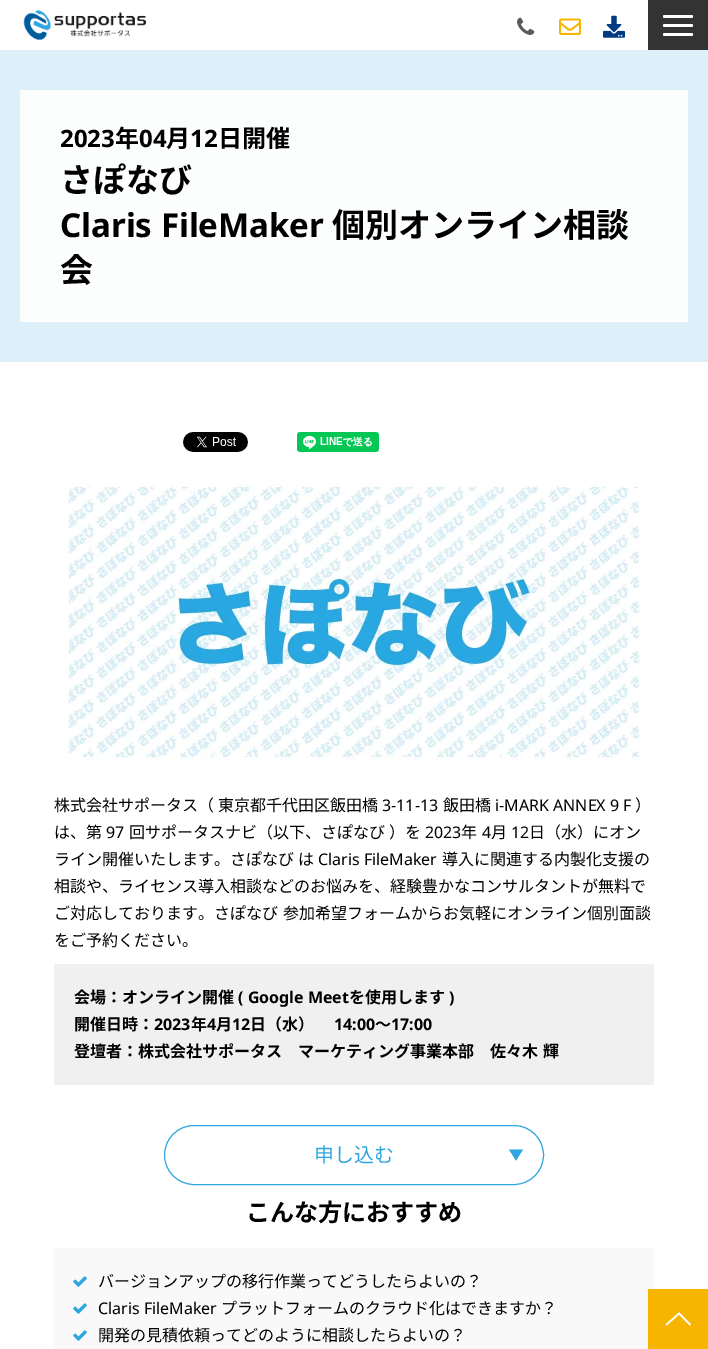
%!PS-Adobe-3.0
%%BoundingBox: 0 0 708 1349
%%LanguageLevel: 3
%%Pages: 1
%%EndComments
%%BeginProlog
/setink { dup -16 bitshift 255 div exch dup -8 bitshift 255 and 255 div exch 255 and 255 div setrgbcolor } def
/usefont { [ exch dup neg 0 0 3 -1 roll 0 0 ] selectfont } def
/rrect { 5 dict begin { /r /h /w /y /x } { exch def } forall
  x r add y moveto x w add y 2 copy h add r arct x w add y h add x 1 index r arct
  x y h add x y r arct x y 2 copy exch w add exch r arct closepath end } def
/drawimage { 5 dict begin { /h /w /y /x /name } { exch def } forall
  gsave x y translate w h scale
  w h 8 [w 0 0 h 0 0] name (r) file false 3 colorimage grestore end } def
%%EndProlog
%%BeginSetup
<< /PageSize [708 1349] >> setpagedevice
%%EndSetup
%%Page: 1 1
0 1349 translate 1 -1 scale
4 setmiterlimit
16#FFFFFF setink
0 0 708 1349 rectfill
16#DCF0F9 setink
0 50 708 1 rectfill
(img1.raw) 23 10 123 30 drawimage
(img2.raw) 517 17 18 18 drawimage
(img3.raw) 559 18 22 17 drawimage
(img4.raw) 603 15 22 23 drawimage
16#333333 setink
648 0 60 50 rectfill
16#FFFFFF setink
663 15 30 3 1.5 rrect fill
663 24 30 3 1.5 rrect fill
663 33 30 3 1.5 rrect fill
16#DDF0F9 setink
0 51 708 311 rectfill
16#FCFEFE setink
20 90 668 232 rectfill
/NotoSans-Bold 24 usefont
16#000000 setink
60 147 moveto (2023) show
/NotoSansJP-Bold 24 usefont
115 147 moveto (年) show
/NotoSans-Bold 24 usefont
139 147 moveto (04) show
/NotoSansJP-Bold 24 usefont
166 147 moveto (月) show
/NotoSans-Bold 24 usefont
190 147 moveto (12) show
/NotoSansJP-Bold 24 usefont
218 147 moveto (日開催) show
/NotoSansJP-Bold 33 usefont
60 192 moveto (さぽなび) show
/NotoSans-Bold 33 usefont
60 237 moveto (Claris FileMaker) show
/NotoSansJP-Bold 33 usefont
332 237 moveto (個別オンライン相談) show
60 282 moveto (会) show
(img5.raw) 183 432 65 20 drawimage
(img6.raw) 297 432 82 20 drawimage
(img7.raw) 67 484 573 276 drawimage
/NotoSansJP-Regular 16 usefont
54 811 moveto (株式会社サポータス（) show
218 811 moveto (東京都千代田区飯田橋) show
/NotoSans-Regular 16 usefont
382 811 moveto (3-11-13) show
/NotoSansJP-Regular 16 usefont
443 811 moveto (飯田橋) show
/NotoSans-Regular 16 usefont
495 811 moveto (i-MARK ANNEX 9 F) show
/NotoSansJP-Regular 16 usefont
635 811 moveto (）) show
54 838 moveto (は、第) show
/NotoSans-Regular 16 usefont
106 838 moveto (97) show
/NotoSansJP-Regular 16 usefont
129 838 moveto (回サポータスナビ（以下、さぽなび ）を) show
/NotoSans-Regular 16 usefont
425 838 moveto (2023) show
/NotoSansJP-Regular 16 usefont
461 838 moveto (年) show
/NotoSans-Regular 16 usefont
482 838 moveto (4) show
/NotoSansJP-Regular 16 usefont
491 838 moveto (月) show
/NotoSans-Regular 16 usefont
511 838 moveto (12) show
/NotoSansJP-Regular 16 usefont
[
    [(日（水）にオン) 529 838]
    [(ライン開催いたします。さぽなび) 54 865]
    [(は) 298 865]
] { aload pop moveto show } forall
/NotoSans-Regular 16 usefont
318 865 moveto (Claris FileMaker) show
/NotoSansJP-Regular 16 usefont
442 865 moveto (導入に関連する内製化支援の) show
54 892 moveto (相談や、ライセンス導入相談などのお悩みを、経験豊かなコンサルタントが無料で) show
54 919 moveto 1 0 32 (ご対応しております。さぽなび 参加希望フォームからお気軽にオンライン個別面談) widthshow
54 946 moveto (をご予約ください。) show
16#F0F0F0 setink
54 964 600 121 rectfill
/NotoSansJP-Bold 16 usefont
16#000000 setink
74 1003 moveto (会場：オンライン開催) show
/NotoSans-Bold 16 usefont
238 1003 moveto (\( Google Meet) show
/NotoSansJP-Bold 16 usefont
349 1003 moveto (を使用します) show
/NotoSans-Bold 16 usefont
449 1003 moveto (\)) show
/NotoSansJP-Bold 16 usefont
74 1030 moveto (開催日時：) show
/NotoSans-Bold 16 usefont
154 1030 moveto (2023) show
/NotoSansJP-Bold 16 usefont
191 1030 moveto (年) show
/NotoSans-Bold 16 usefont
207 1030 moveto (4) show
/NotoSansJP-Bold 16 usefont
216 1030 moveto (月) show
/NotoSans-Bold 16 usefont
232 1030 moveto (12) show
/NotoSansJP-Bold 16 usefont
250 1030 moveto (日（水）) show
/NotoSans-Bold 16 usefont
334 1030 moveto (14:00) show
/NotoSansJP-Bold 16 usefont
375 1030 moveto (〜) show
/NotoSans-Bold 16 usefont
391 1030 moveto (17:00) show
/NotoSansJP-Bold 16 usefont
74 1057 moveto 1 0 32 (登壇者：株式会社サポータス　マーケティング事業本部　佐々木 輝) widthshow
16#2EA7E0 setink
164.5 1125.5 379 59 29.5 rrect stroke
/NotoSansJP-Regular 20 usefont
314 1162 moveto (申し込む) show
509 1149.5 moveto 523 1149.5 lineto 516 1160.5 lineto closepath fill
/NotoSansJP-Bold 24 usefont
16#000000 setink
246 1221 moveto (こんな方におすすめ) show
16#F9F9F9 setink
54 1248 600 101 rectfill
(img8.raw) 73 1276 14 11 drawimage
/NotoSansJP-Regular 16 usefont
16#000000 setink
98 1287 moveto (バージョンアップの移行作業ってどうしたらよいの？) show
(img8.raw) 73 1303 14 11 drawimage
/NotoSans-Regular 16 usefont
98 1314 moveto (Claris FileMaker) show
/NotoSansJP-Regular 16 usefont
221 1314 moveto (プラットフォームのクラウド化はできますか？) show
(img8.raw) 73 1330 14 11 drawimage
98 1341 moveto (開発の見積依頼ってどのように相談したらよいの？) show
(img9.raw) 648 1289 60 60 drawimage
showpage
%%EOF
